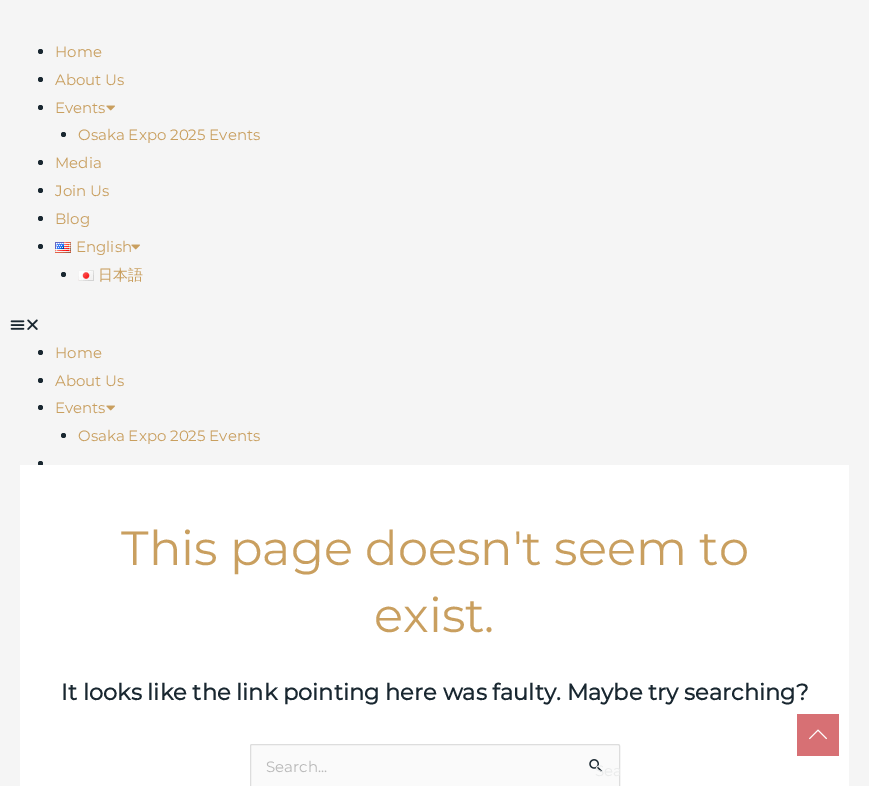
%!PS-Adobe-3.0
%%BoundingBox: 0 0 869 786
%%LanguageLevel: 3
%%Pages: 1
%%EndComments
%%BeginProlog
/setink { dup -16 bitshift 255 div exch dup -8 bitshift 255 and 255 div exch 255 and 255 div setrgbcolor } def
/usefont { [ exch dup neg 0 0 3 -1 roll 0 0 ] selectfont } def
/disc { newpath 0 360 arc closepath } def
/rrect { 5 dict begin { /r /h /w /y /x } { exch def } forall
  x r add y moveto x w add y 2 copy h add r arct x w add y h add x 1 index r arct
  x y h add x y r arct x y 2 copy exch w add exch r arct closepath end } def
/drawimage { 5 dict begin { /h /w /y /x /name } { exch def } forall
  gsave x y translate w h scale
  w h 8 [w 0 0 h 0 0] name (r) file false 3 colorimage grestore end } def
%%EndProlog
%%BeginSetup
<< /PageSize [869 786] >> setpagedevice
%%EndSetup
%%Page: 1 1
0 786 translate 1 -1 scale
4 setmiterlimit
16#F5F5F5 setink
0 0 869 786 rectfill
16#192730 setink
40.5 51.5 2.5 disc fill
/Montserrat-Thin 15 usefont
16#C99F5F setink
55 57 moveto (Home) show
16#192730 setink
40.5 79.5 2.5 disc fill
16#C99F5F setink
55 85 moveto (About Us) show
16#192730 setink
40.5 107.5 2.5 disc fill
16#C99F5F setink
55 113 moveto (Events) show
(img1.raw) 106 105 9 6 drawimage
16#192730 setink
63.5 134.5 2.5 disc fill
16#C99F5F setink
78 140 moveto (Osaka Expo 2025 Events) show
16#192730 setink
40.5 162.5 2.5 disc fill
16#C99F5F setink
55 168 moveto (Media) show
16#192730 setink
40.5 190.5 2.5 disc fill
16#C99F5F setink
55 196 moveto (Join Us) show
16#192730 setink
40.5 218.5 2.5 disc fill
16#C99F5F setink
55 224 moveto (Blog) show
16#192730 setink
40.5 246.5 2.5 disc fill
(img2.raw) 55 242 16 11 drawimage
16#C99F5F setink
76 252 moveto (English) show
(img1.raw) 131 244 9 6 drawimage
16#192730 setink
63.5 274.5 2.5 disc fill
(img3.raw) 78 270 16 11 drawimage
/WenQuanYiZenHei-Medium 15 usefont
16#C99F5F setink
98 280 moveto (日本語) show
(img4.raw) 10 320 15 10 drawimage
(img5.raw) 27 319 11 11 drawimage
16#192730 setink
40.5 352.5 2.5 disc fill
/Montserrat-Thin 15 usefont
16#C99F5F setink
55 358 moveto (Home) show
16#192730 setink
40.5 380.5 2.5 disc fill
16#C99F5F setink
55 386 moveto (About Us) show
16#192730 setink
40.5 407.5 2.5 disc fill
16#C99F5F setink
55 413 moveto (Events) show
(img1.raw) 106 405 9 6 drawimage
16#192730 setink
63.5 435.5 2.5 disc fill
16#C99F5F setink
78 441 moveto (Osaka Expo 2025 Events) show
16#192730 setink
40.5 463.5 2.5 disc fill
16#FFFFFF setink
20 465 829 321 rectfill
/Montserrat-Thin 48 usefont
16#C99F5F setink
121 565 moveto (This page doesn't seem to) show
374 632 moveto (exist.) show
/Montserrat-Bold 22.5 usefont
16#192730 setink
61 700 moveto (It looks like the link pointing here was faulty. Maybe try searching?) show
16#FAFAFA setink
250.5 744.5 369 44 1.5 rrect gsave fill grestore
16#DDDDDD setink
stroke
/Montserrat-Thin 15 usefont
16#B8B8B8 setink
266 772 moveto (Search...) show
(img6.raw) 589 759 14 13 drawimage
gsave
575 744 45 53 2 rrect clip newpath
16#E9EAEA setink
595 776 moveto (Sea) show
grestore
16#D77074 setink
797 714 42 42 rectfill
(img7.raw) 809 729 18 11 drawimage
showpage
%%EOF
